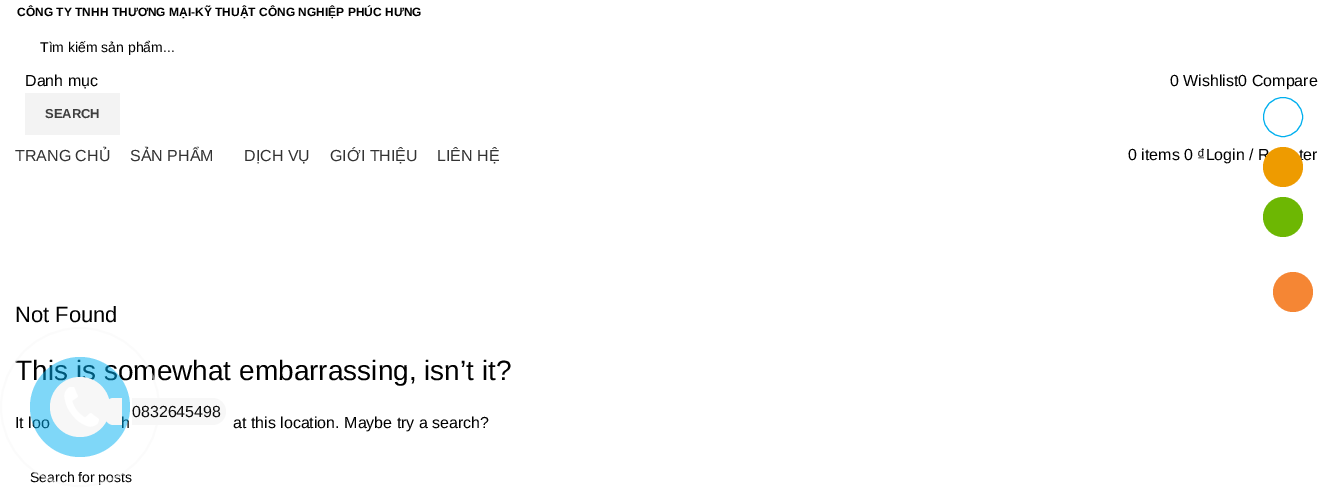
%!PS-Adobe-3.0
%%BoundingBox: 0 0 1323 492
%%LanguageLevel: 3
%%Pages: 1
%%EndComments
%%BeginProlog
/setink { dup -16 bitshift 255 div exch dup -8 bitshift 255 and 255 div exch 255 and 255 div setrgbcolor } def
/usefont { [ exch dup neg 0 0 3 -1 roll 0 0 ] selectfont } def
/setalpha { dup .setfillconstantalpha .setstrokeconstantalpha } def
/disc { newpath 0 360 arc closepath } def
/drawimage { 5 dict begin { /h /w /y /x /name } { exch def } forall
  gsave x y translate w h scale
  w h 8 [w 0 0 h 0 0] name (r) file false 3 colorimage grestore end } def
%%EndProlog
%%BeginSetup
<< /PageSize [1323 492] /PageUsesTransparency true >> setpagedevice
%%EndSetup
%%Page: 1 1
0 .pushpdf14devicefilter
0 492 translate 1 -1 scale
4 setmiterlimit
16#FFFFFF setink
0 0 1323 492 rectfill
/LiberationSans-Bold 12 usefont
16#000000 setink
17 16 moveto (CÔNG TY TNHH THƯƠNG MẠI-KỸ THUẬT CÔNG NGHIỆP PHÚC HƯNG) show
/LiberationSans-Regular 14 usefont
40 52 moveto (Tìm kiếm sản phẩm...) show
/LiberationSans-Regular 16 usefont
25 86 moveto (Danh mục) show
16#F3F3F3 setink
25 93 95 42 rectfill
/LiberationSans-Bold 13 usefont
16#3E3E3E setink
45 118 moveto (SEARCH) show
/LiberationSans-Regular 16 usefont
16#000000 setink
1170 86 moveto (0 Wishlist0 Compare) show
16#333333 setink
[
    [(TRANG CHỦ) 15 161]
    [(SẢN PHẨM) 130 161]
    [(DỊCH VỤ) 244 161]
    [(GIỚI THIỆU) 330 161]
    [(LIÊN HỆ) 437 161]
] { aload pop moveto show } forall
16#000000 setink
1128 160 moveto (0 items 0 ₫Login / R) show
1299 160 moveto (ter) show
/LiberationSans-Regular 22 usefont
15 322 moveto (Not Found) show
/LiberationSans-Regular 28 usefont
15 380 moveto (This is somewhat embarrassing, isn’t it?) show
/LiberationSans-Regular 16 usefont
[
    [(It loo) 15 428]
    [(h) 121 428]
    [(at this location. Maybe try a search?) 233 428]
] { aload pop moveto show } forall
/LiberationSans-Regular 14 usefont
30 482 moveto (Search for posts) show
16#00AFEE setink
1283 117 19.5 disc stroke
16#EE9B00 setink
1283 167 20 disc fill
16#6DB703 setink
1283 217 20 disc fill
16#F58634 setink
1293 292 20 disc fill
0.5 setalpha
16#F7F7F7 setink
2 setlinewidth
80 407 79 disc stroke
16#00AFF2 setink
80 407 50 disc fill
1 setalpha
16#F7F7F7 setink
80 407 30 disc fill
(img1.raw) 64 387 35 40 drawimage
132 398 moveto 212.5 398 lineto 220 398 226 404 226 411.5 curveto 226 419 220 425 212.5 425 curveto 132 425 lineto closepath fill
/LiberationSans-Regular 16 usefont
16#0C0C0C setink
132 417 moveto (0832645498) show
16#F7F7F7 setink
113.5 398 moveto 122 398 lineto 122 425 lineto 113.5 425 lineto 109 425 105 421 105 416.5 curveto 105 406.5 lineto 105 402 109 398 113.5 398 curveto closepath fill
.poppdf14devicefilter showpage
%%EOF
